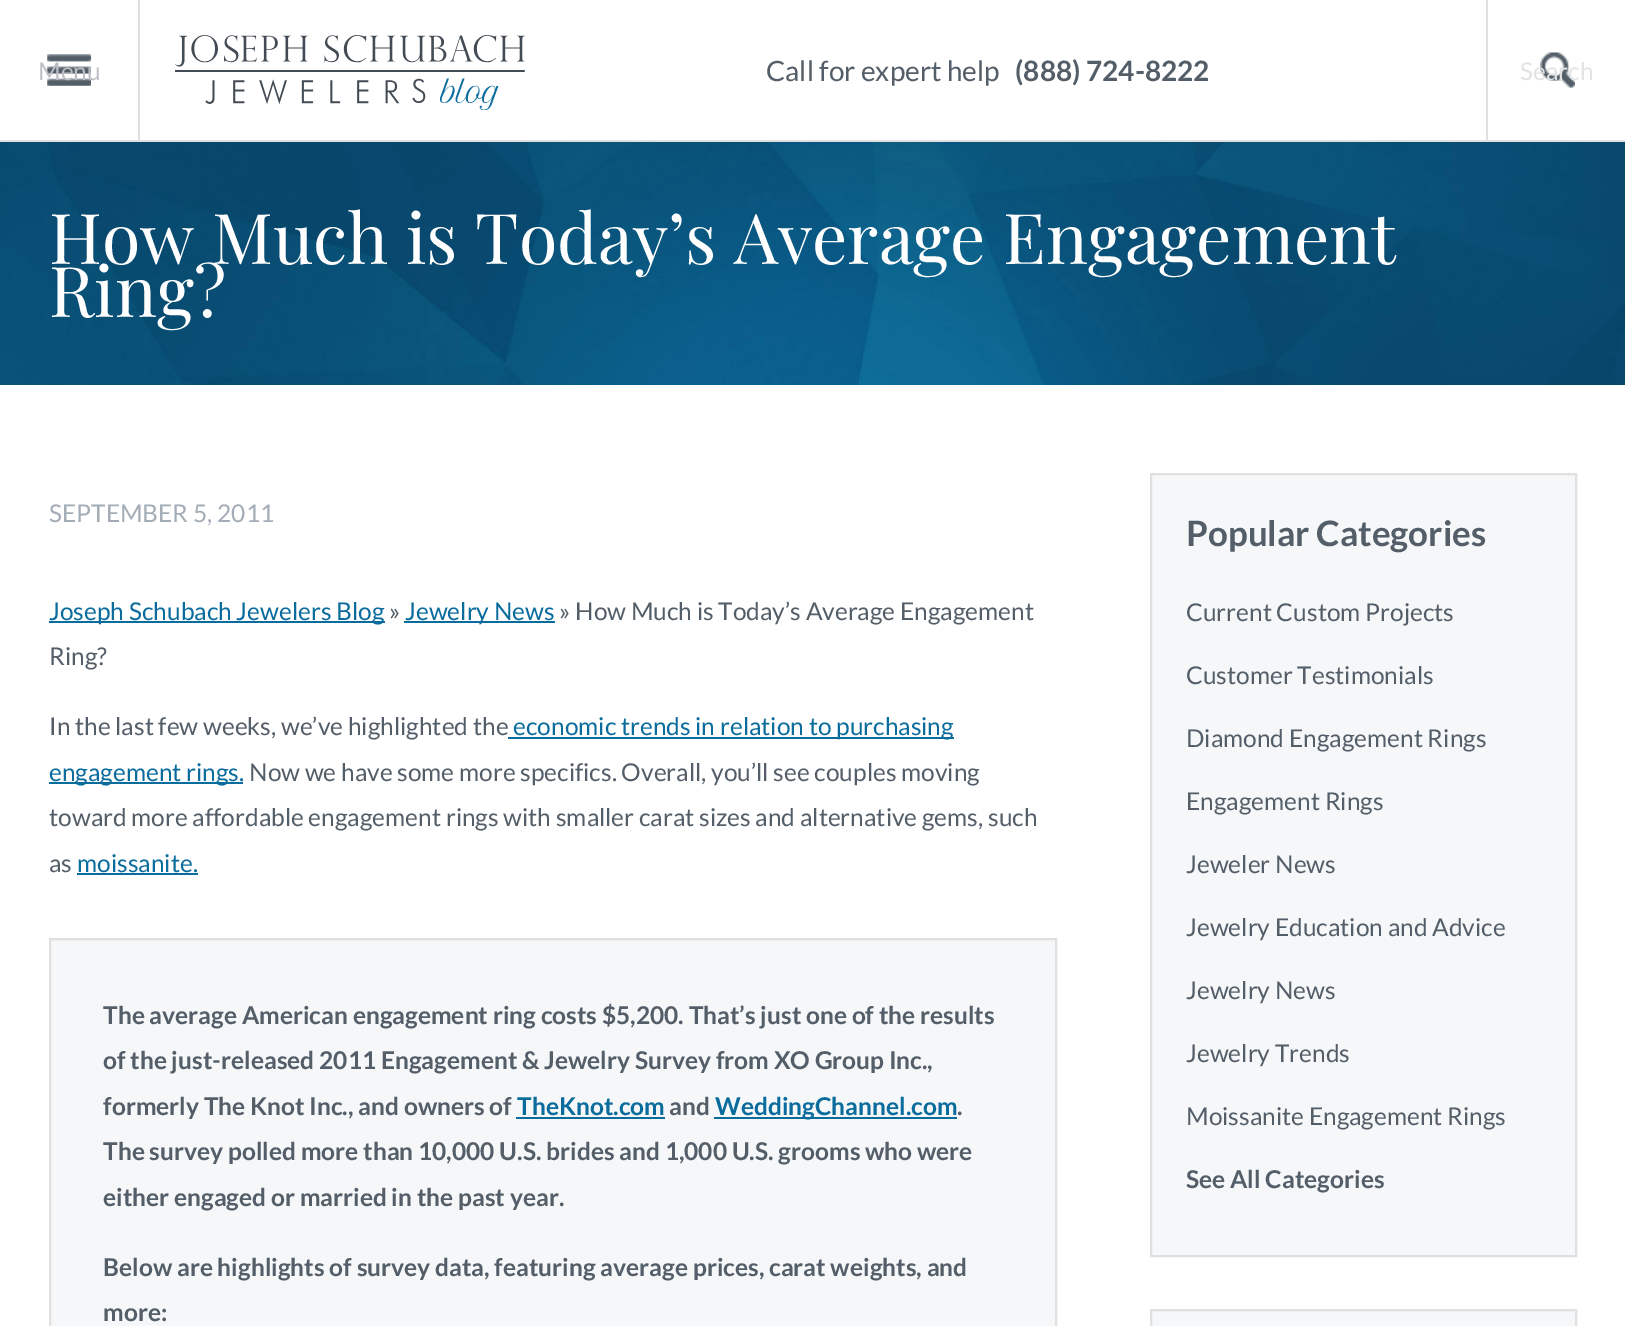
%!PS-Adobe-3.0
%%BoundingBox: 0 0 1625 1326
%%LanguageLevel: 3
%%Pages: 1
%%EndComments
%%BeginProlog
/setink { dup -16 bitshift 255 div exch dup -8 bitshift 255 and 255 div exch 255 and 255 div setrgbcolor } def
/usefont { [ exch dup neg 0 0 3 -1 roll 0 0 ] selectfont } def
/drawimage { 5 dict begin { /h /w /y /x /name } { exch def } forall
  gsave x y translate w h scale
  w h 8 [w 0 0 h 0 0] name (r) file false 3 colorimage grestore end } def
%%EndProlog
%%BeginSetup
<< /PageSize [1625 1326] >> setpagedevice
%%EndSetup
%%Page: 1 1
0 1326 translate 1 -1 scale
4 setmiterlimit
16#FFFFFF setink
0 0 1625 1326 rectfill
16#E0E0E0 setink
0 140 1625 2 rectfill
(img1.raw) 47 54 44 32 drawimage
138 0 2 140 rectfill
/Lato-Regular 24.5 usefont
16#BCC0C4 setink
38 80 moveto (Menu) show
(img2.raw) 175 35 350 75 drawimage
/Lato-Regular 28 usefont
16#535E69 setink
766 81 moveto (Call for expert help) show
/Lato-Bold 28 usefont
1015 81 moveto (\(888\) 724-8222) show
(img3.raw) 1540 52 35 36 drawimage
16#E0E0E0 setink
1486 0 2 140 rectfill
/Lato-Regular 24.5 usefont
16#E1E3E5 setink
1520 80 moveto (Search) show
(img4.raw) 0 142 1625 243 drawimage
/PlayfairDisplay-Regular 70 usefont
16#FFFFFF setink
49 264 moveto (How Much is Today’s Average Engagement) show
49 317 moveto (Ring?) show
/Lato-Regular 24.5 usefont
16#A4ADB7 setink
49 522 moveto (SEPTEMBER 5, 2011) show
16#0A6C9D setink
49 621 336 2 rectfill
49 620 moveto (Joseph Schubach Jewelers Blog) show
16#535E69 setink
389 620 moveto (») show
16#0A6C9D setink
404 621 151 2 rectfill
405 620 moveto (Jewelry News) show
16#535E69 setink
[
    [(» How Much is Today’s Average Engagement) 559 620]
    [(Ring?) 49 665]
    [(In the last few weeks, we’ve highlighted the) 49 735]
] { aload pop moveto show } forall
16#0A6C9D setink
508 737 446 2 rectfill
513 735 moveto (economic trends in relation to purchasing) show
49 782 194 2 rectfill
49 781 moveto (engagement rings.) show
16#535E69 setink
[
    [(Now we have some more specifics. Overall, you’ll see couples moving) 249 781]
    [(toward more affordable engagement rings with smaller carat sizes and alternative gems, such) 49 826]
    [(as) 49 872]
] { aload pop moveto show } forall
16#0A6C9D setink
77 872 moveto (moissanite.) show
77 873 121 2 rectfill
16#F5F7F9 setink
50 939 moveto 1056 939 lineto 1056 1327 lineto 50 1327 lineto closepath gsave fill grestore
16#E0E0E0 setink
2 setlinewidth
stroke
/Lato-Bold 24.5 usefont
16#535E69 setink
[
    [(The average American engagement ring costs $5,200. That’s just one of the results) 103 1024]
    [(of the just-released 2011 Engagement & Jewelry Survey from XO Group Inc.,) 103 1069]
    [(formerly The Knot Inc., and owners of) 103 1115]
] { aload pop moveto show } forall
16#0A6C9D setink
517 1115 moveto (TheKnot.com) show
516 1117 149 2 rectfill
16#535E69 setink
669 1115 moveto (and) show
16#0A6C9D setink
714 1117 243 2 rectfill
715 1115 moveto (WeddingChannel.com) show
16#535E69 setink
[
    [(.) 957 1115]
    [(The survey polled more than 10,000 U.S. brides and 1,000 U.S. grooms who were) 103 1160]
    [(either engaged or married in the past year.) 103 1206]
    [(Below are highlights of survey data, featuring average prices, carat weights, and) 103 1276]
    [(more:) 103 1321]
] { aload pop moveto show } forall
16#F5F7F9 setink
1151 474 moveto 1576 474 lineto 1576 1256 lineto 1151 1256 lineto closepath gsave fill grestore
16#E0E0E0 setink
stroke
/Lato-Bold 35 usefont
16#535E69 setink
1186 546 moveto (Popular Categories) show
/Lato-Regular 24.5 usefont
[
    [(Current Custom Projects) 1186 621]
    [(Customer Testimonials) 1186 684]
    [(Diamond Engagement Rings) 1186 747]
    [(Engagement Rings) 1186 810]
    [(Jeweler News) 1186 873]
    [(Jewelry Education and Advice) 1186 936]
    [(Jewelry News) 1186 999]
    [(Jewelry Trends) 1186 1062]
    [(Moissanite Engagement Rings) 1186 1125]
] { aload pop moveto show } forall
/Lato-Bold 24.5 usefont
1186 1188 moveto (See All Categories) show
16#F5F7F9 setink
1151 1310 moveto 1576 1310 lineto 1576 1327 lineto 1151 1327 lineto closepath gsave fill grestore
16#E0E0E0 setink
stroke
showpage
%%EOF
